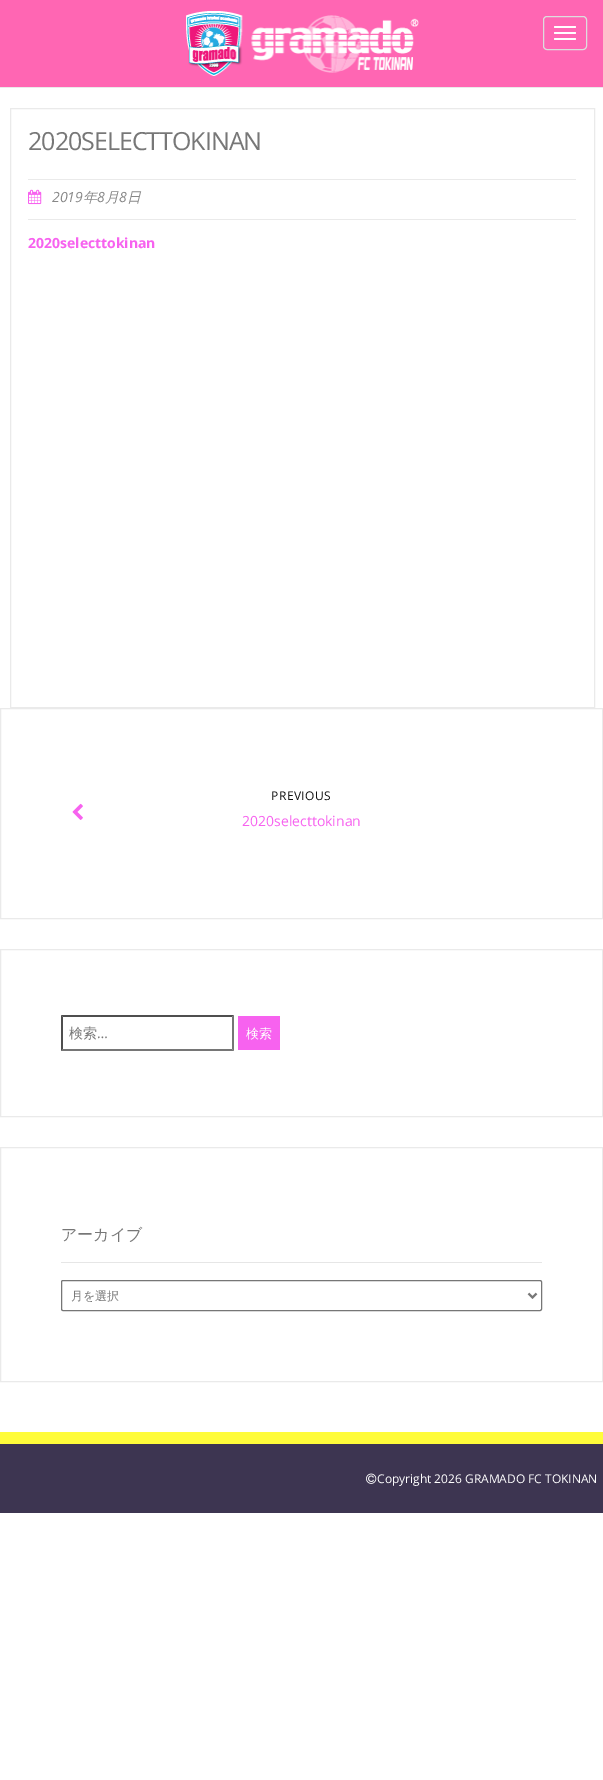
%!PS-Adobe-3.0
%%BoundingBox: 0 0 603 1780
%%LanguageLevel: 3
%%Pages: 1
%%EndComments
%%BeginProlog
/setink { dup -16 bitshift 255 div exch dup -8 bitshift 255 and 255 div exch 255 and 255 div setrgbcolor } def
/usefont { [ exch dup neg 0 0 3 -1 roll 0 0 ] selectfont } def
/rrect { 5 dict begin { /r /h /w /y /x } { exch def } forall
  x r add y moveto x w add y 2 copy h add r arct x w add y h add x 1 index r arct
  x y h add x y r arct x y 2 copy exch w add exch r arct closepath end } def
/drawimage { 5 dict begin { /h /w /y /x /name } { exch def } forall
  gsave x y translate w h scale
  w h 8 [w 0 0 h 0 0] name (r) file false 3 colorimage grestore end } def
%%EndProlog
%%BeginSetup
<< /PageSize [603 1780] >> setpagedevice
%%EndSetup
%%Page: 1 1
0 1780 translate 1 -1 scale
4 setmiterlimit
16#FFFFFF setink
0 0 603 1780 rectfill
16#FF66B3 setink
0 0 603 87 rectfill
16#EAEAEA setink
0 87 603 1 rectfill
(img1.raw) 186 11 233 65 drawimage
16#DDDDDD setink
543.5 16.5 43 33 3.5 rrect stroke
16#FFFFFF setink
554 26 22 2 1 rrect fill
554 32 22 2 1 rrect fill
554 38 22 2 1 rrect fill
16#EAEAEA setink
10.5 108.5 584 599 rectstroke
/OpenSans-Regular 25 usefont
16#777777 setink
28 150 moveto -1 0 (2020SELECTTOKINAN) ashow
16#EAEAEA setink
28 179 548 1 rectfill
28 219 548 1 rectfill
(img2.raw) 28 189 14 16 drawimage
/OpenSans-Italic 14 usefont
16#888888 setink
52 202 moveto (2019) show
/WenQuanYiZenHei-MediumItalic 14 usefont
83 202 moveto (年) show
/OpenSans-Italic 14 usefont
97 202 moveto (8) show
/WenQuanYiZenHei-MediumItalic 14 usefont
105 202 moveto (月) show
/OpenSans-Italic 14 usefont
119 202 moveto (8) show
/WenQuanYiZenHei-MediumItalic 14 usefont
127 202 moveto (日) show
/OpenSans-Bold 14 usefont
16#F762EF setink
28 248 moveto (2020selecttokinan) show
16#EAEAEA setink
0.5 708.5 602 210 rectstroke
/OpenSans-Regular 12 usefont
16#111111 setink
271 800 moveto 0.5 0 (PREVIOUS) ashow
(img3.raw) 72 803 11 17 drawimage
/OpenSans-Regular 14 usefont
16#F762EF setink
242 826 moveto (2020selecttokinan) show
16#EAEAEA setink
0.5 949.5 602 167 rectstroke
16#4F4F4F setink
61 1015 moveto 234 1015 lineto 232 1017 lineto 63 1017 lineto closepath fill
16#767676 setink
234 1015 moveto 234 1051 lineto 232 1049 lineto 232 1017 lineto closepath fill
234 1051 moveto 61 1051 lineto 63 1049 lineto 232 1049 lineto closepath fill
16#4F4F4F setink
61 1051 moveto 61 1015 lineto 63 1017 lineto 63 1049 lineto closepath fill
/WenQuanYiZenHei-Medium 14 usefont
16#777777 setink
69 1038 moveto (検索) show
/OpenSans-Regular 14 usefont
97 1038 moveto (…) show
16#F762EF setink
238 1016 42 34 rectfill
/WenQuanYiZenHei-Medium 13 usefont
16#FFFFFF setink
246 1038 moveto (検索) show
16#EAEAEA setink
0.5 1147.5 602 234 rectstroke
16#E6E6E6 setink
61 1262 481 1 rectfill
/WenQuanYiZenHei-Medium 16 usefont
16#777777 setink
61 1240 moveto (アーカイブ) show
16#767676 setink
61.5 1280.5 480 30 1.5 rrect stroke
16#777777 setink
2 setlinewidth
528.5 1293.5 moveto 532.5 1297.5 lineto 536.5 1293.5 lineto stroke
/WenQuanYiZenHei-Medium 12 usefont
71 1300 moveto (月を選択) show
16#FFFC3A setink
0 1432 603 12 rectfill
16#3D3551 setink
0 1444 603 69 rectfill
(img4.raw) 366 1473 11 11 drawimage
/OpenSans-Regular 12 usefont
16#FFFFFF setink
377 1483 moveto (Copyright 2026 GRAMADO FC TOKINAN) show
showpage
%%EOF
